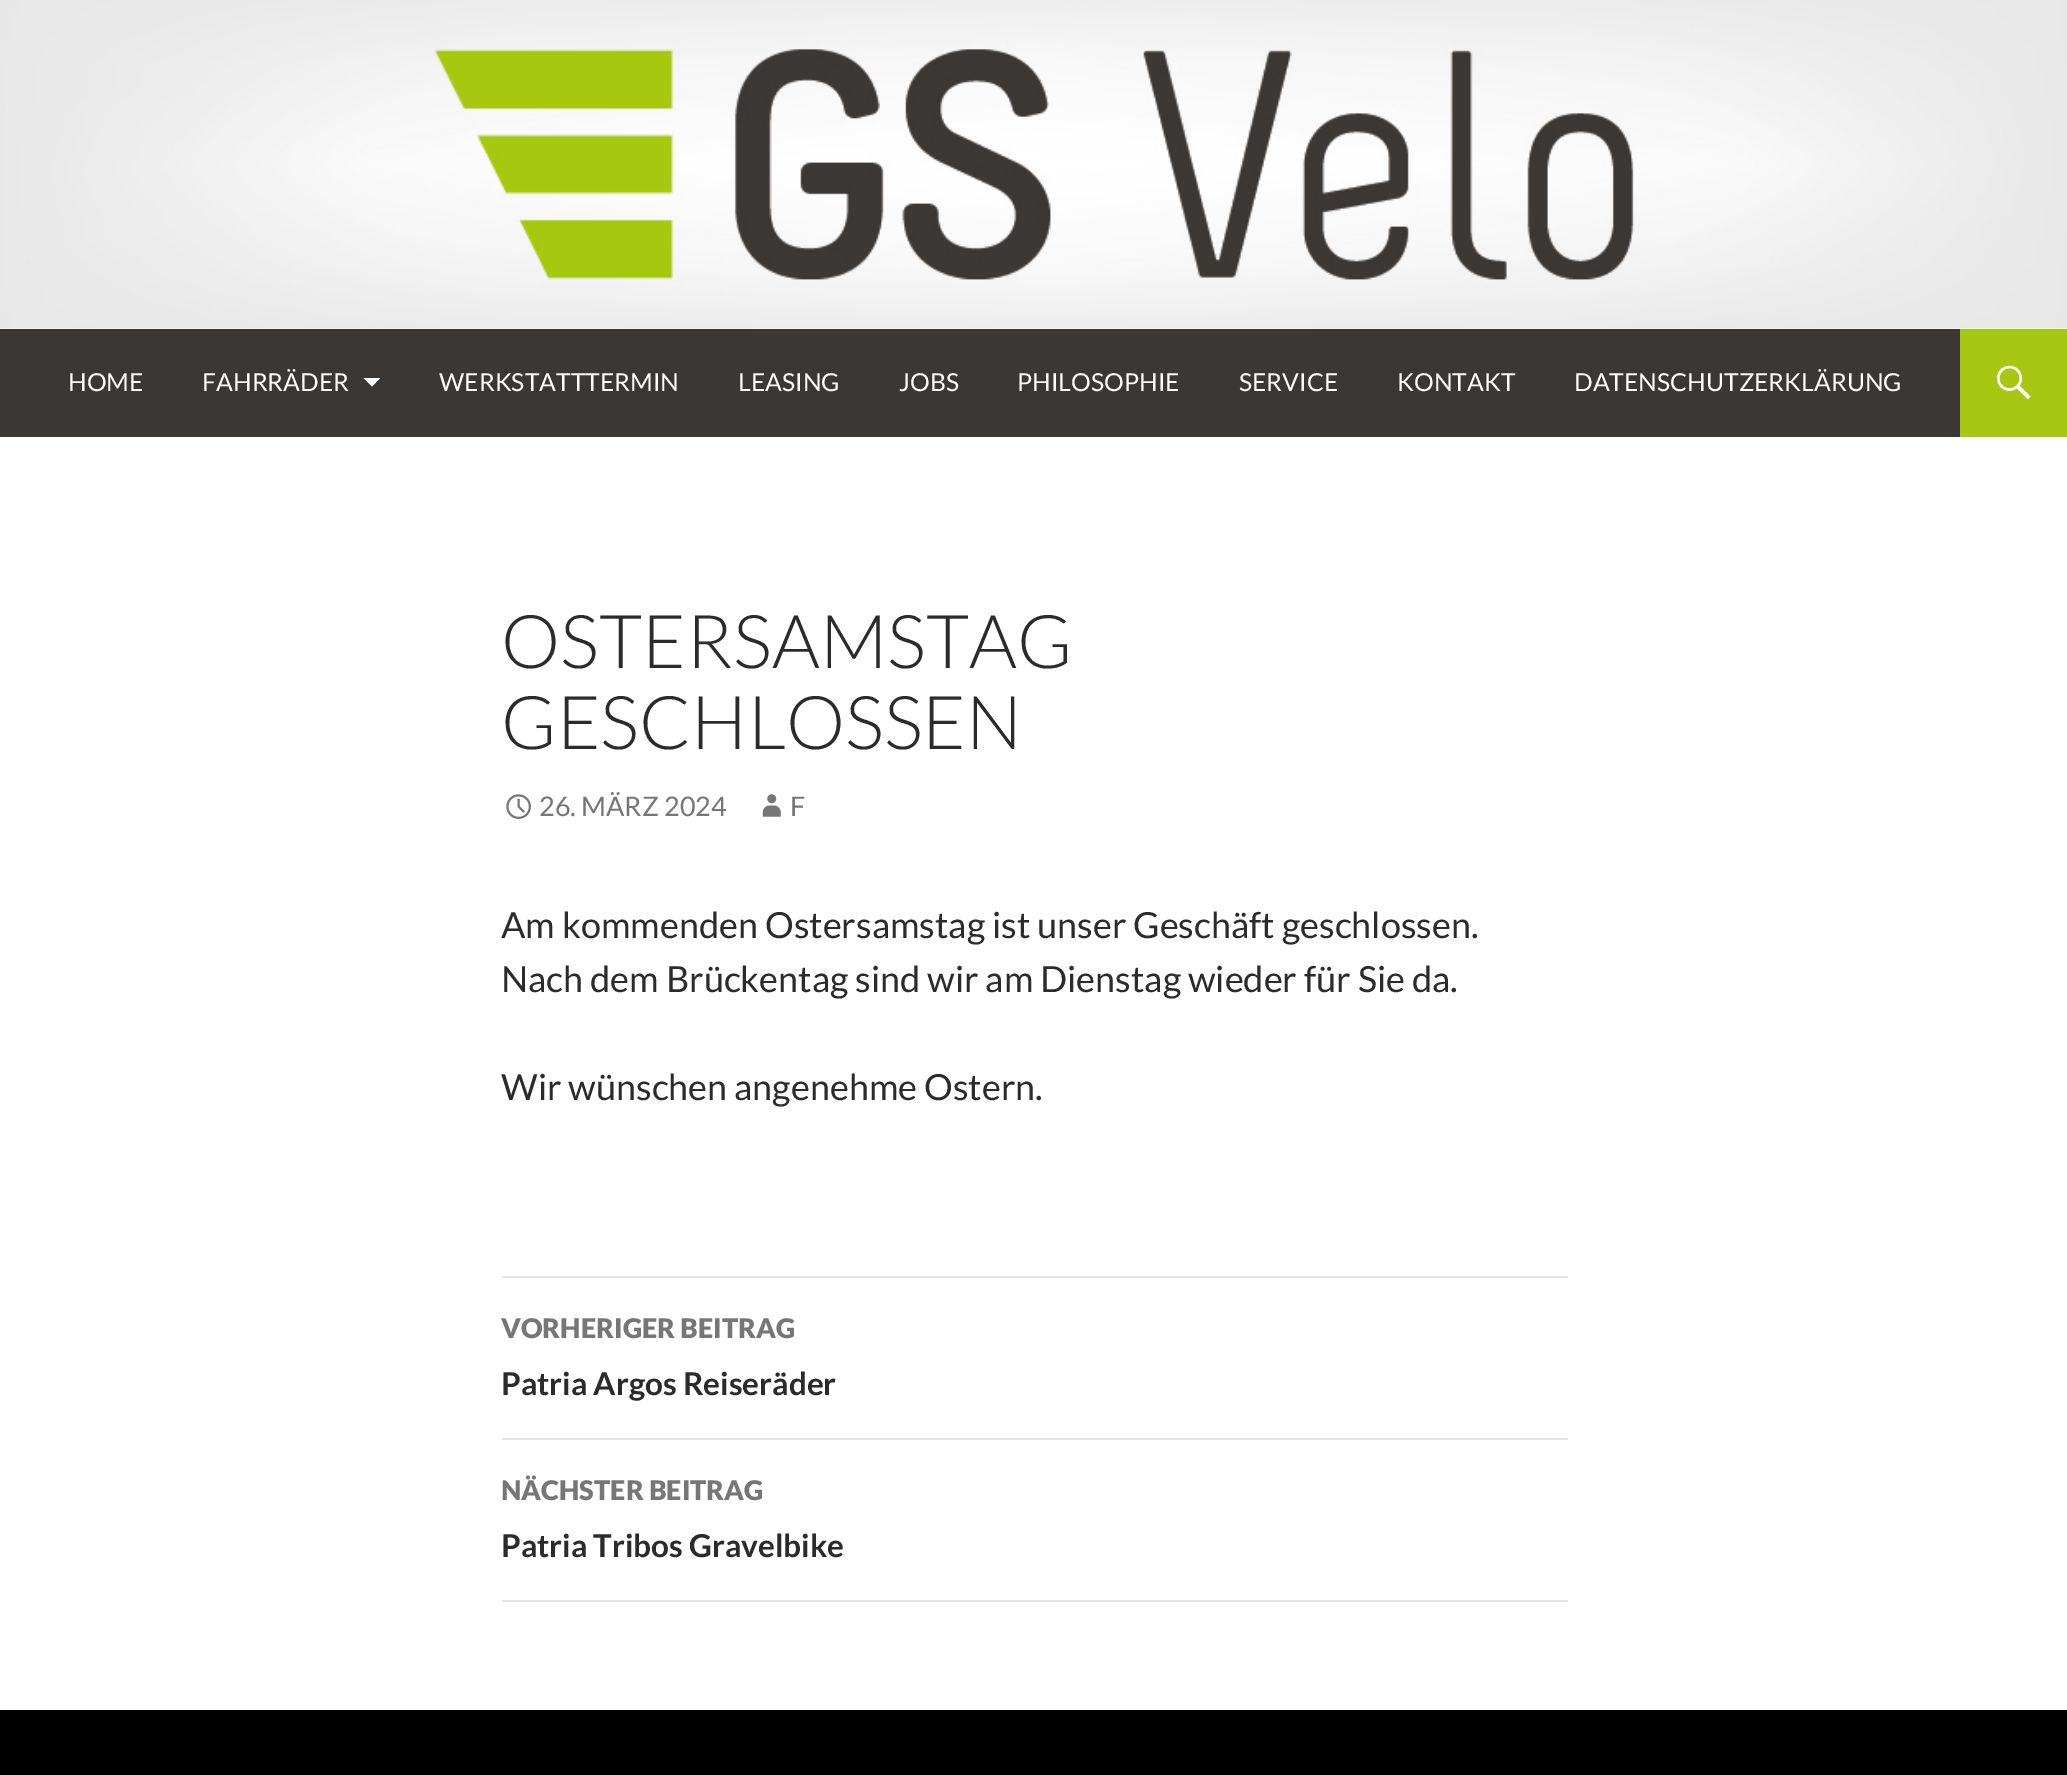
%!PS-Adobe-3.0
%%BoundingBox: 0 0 2067 1775
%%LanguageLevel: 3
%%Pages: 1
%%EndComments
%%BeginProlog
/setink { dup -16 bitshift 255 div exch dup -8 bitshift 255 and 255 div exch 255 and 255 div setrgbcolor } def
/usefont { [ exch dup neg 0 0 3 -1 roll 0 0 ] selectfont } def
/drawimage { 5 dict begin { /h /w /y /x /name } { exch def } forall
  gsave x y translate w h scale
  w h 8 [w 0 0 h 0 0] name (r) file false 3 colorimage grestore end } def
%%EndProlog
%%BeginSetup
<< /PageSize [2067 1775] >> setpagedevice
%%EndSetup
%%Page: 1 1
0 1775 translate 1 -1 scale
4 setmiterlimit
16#FFFFFF setink
0 0 2067 1775 rectfill
(img1.raw) 0 0 2067 329 drawimage
16#3B3735 setink
0 329 1960 108 rectfill
/Lato-Regular 24.75 usefont
16#FFFFFF setink
68 391 moveto (HOME) show
202 391 moveto (FAHRRÄDER) show
363.5 378 moveto 372 386.5 lineto 380 378 lineto closepath fill
[
    [(WERKSTATTTERMIN) 439 391]
    [(LEASING) 738 391]
    [(JOBS) 899 391]
    [(PHILOSOPHIE) 1017 391]
    [(SERVICE) 1239 391]
    [(KONTAKT) 1397 391]
    [(DATENSCHUTZERKLÄRUNG) 1574 391]
] { aload pop moveto show } forall
16#A7C712 setink
1960 329 107 108 rectfill
(img2.raw) 1996 365 35 35 drawimage
/Lato-Light 74.25 usefont
16#2B2B2B setink
501 668 moveto (OSTERSAMSTAG) show
501 749 moveto (GESCHLOSSEN) show
(img3.raw) 506 794 25 25 drawimage
/Lato-Regular 27 usefont
16#767676 setink
539 816 moveto (26. MÄRZ 2024) show
(img4.raw) 762 794 19 23 drawimage
790 816 moveto (F) show
/Lato-Regular 36 usefont
16#2B2B2B setink
[
    [(Am kommenden Ostersamstag ist unser Geschäft geschlossen.) 501 938]
    [(Nach dem Brückentag sind wir am Dienstag wieder für Sie da.) 501 992]
    [(Wir wünschen angenehme Ostern.) 501 1100]
] { aload pop moveto show } forall
16#E6E6E6 setink
502 1276 1066 2 rectfill
502 1438 1066 2 rectfill
/Lato-Black 27 usefont
16#767676 setink
501 1338 moveto (VORHERIGER BEITRAG) show
/Lato-Bold 31.5 usefont
16#2B2B2B setink
501 1395 moveto (Patria Argos Reiseräder) show
16#E6E6E6 setink
502 1600 1066 2 rectfill
/Lato-Black 27 usefont
16#767676 setink
501 1500 moveto (NÄCHSTER BEITRAG) show
/Lato-Bold 31.5 usefont
16#2B2B2B setink
501 1557 moveto (Patria Tribos Gravelbike) show
16#000000 setink
0 1710 2067 65 rectfill
showpage
%%EOF
